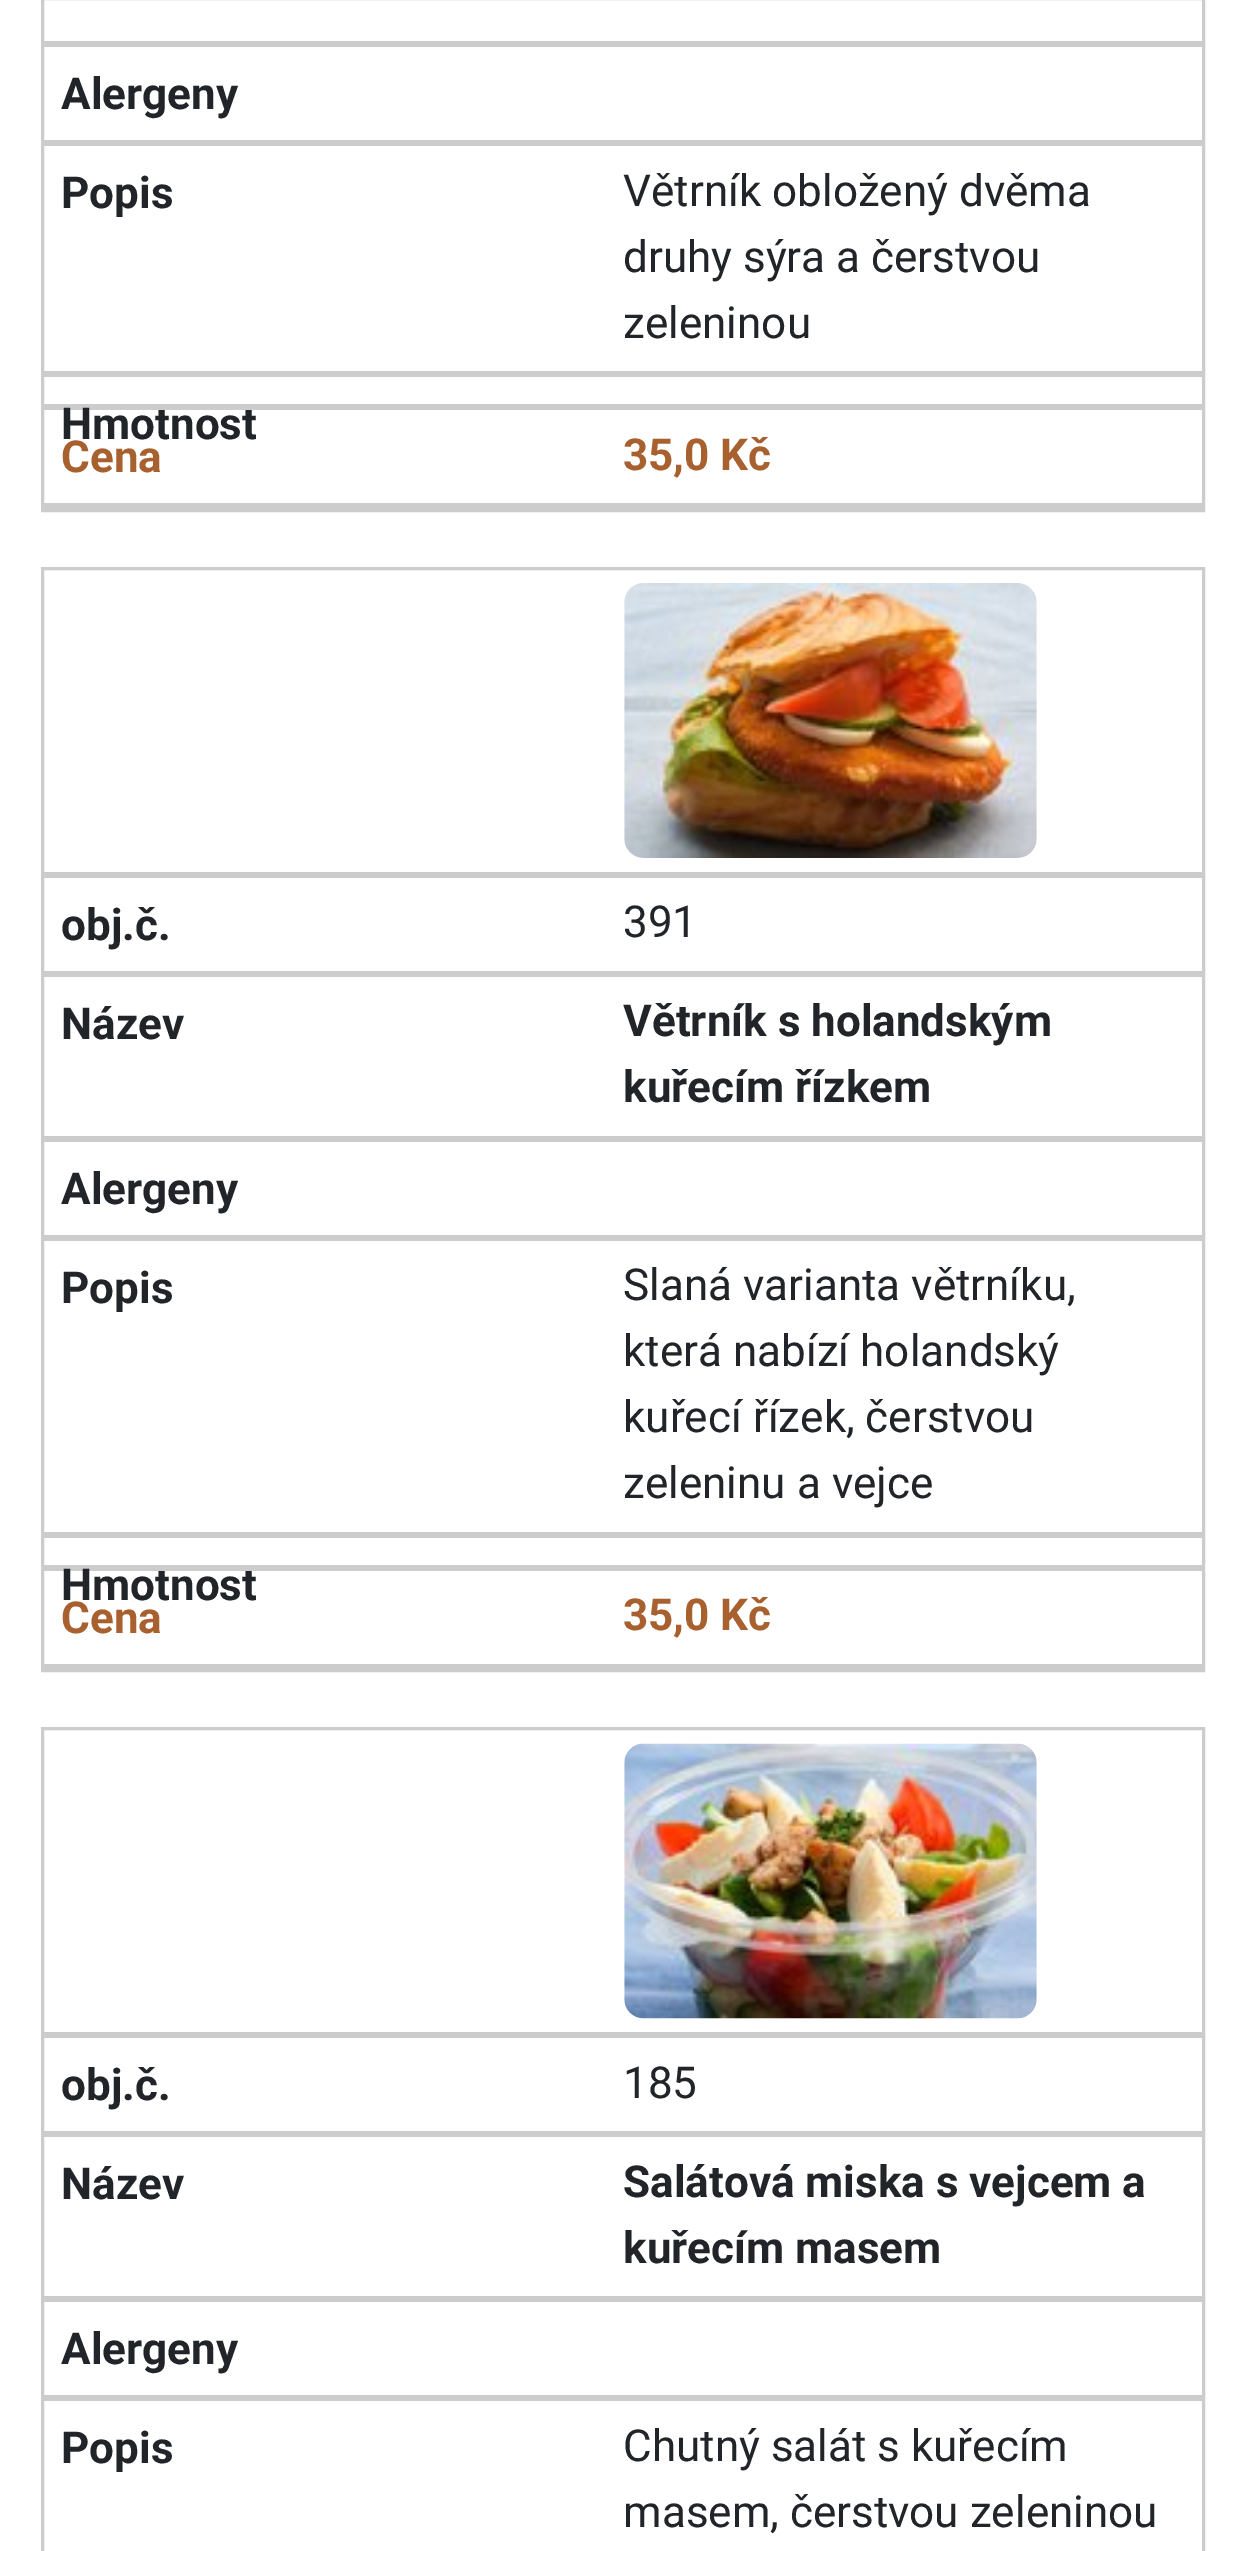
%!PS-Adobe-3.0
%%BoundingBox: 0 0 1244 2551
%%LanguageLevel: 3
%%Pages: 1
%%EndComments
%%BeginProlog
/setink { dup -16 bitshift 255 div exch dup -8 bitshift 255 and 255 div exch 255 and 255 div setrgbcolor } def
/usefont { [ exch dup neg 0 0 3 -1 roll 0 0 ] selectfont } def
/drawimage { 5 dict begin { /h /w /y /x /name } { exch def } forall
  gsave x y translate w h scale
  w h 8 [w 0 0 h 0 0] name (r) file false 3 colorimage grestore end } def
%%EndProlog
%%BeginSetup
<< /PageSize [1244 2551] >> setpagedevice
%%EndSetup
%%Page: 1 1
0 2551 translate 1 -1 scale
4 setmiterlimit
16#FFFFFF setink
0 0 1244 2551 rectfill
16#CCCCCC setink
3 setlinewidth
42.5 -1.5 1161 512 rectstroke
44 41 1158 6 rectfill
44 140 1158 6 rectfill
/Roboto-Bold 44 usefont
16#212529 setink
61 109 moveto (Alergeny) show
16#CCCCCC setink
44 371 1158 6 rectfill
16#212529 setink
61 208 moveto (Popis) show
/Roboto-Regular 44 usefont
[
    [(Větrník obložený dvěma) 623 206]
    [(druhy sýra a čerstvou) 623 272]
    [(zeleninou) 623 338]
] { aload pop moveto show } forall
16#CCCCCC setink
44 404 1158 6 rectfill
/Roboto-Bold 44 usefont
16#212529 setink
61 439 moveto (Hmotnost) show
16#CCCCCC setink
44 503 1158 6 rectfill
16#A8612E setink
61 472 moveto (Cena) show
623 470 moveto (35,0 Kč) show
16#CCCCCC setink
42.5 568.5 1161 1102 rectstroke
44 872 1158 6 rectfill
(img1.raw) 624 583 413 275 drawimage
44 971 1158 6 rectfill
16#212529 setink
61 940 moveto (obj.č.) show
/Roboto-Regular 44 usefont
623 937 moveto (391) show
16#CCCCCC setink
44 1136 1158 6 rectfill
/Roboto-Bold 44 usefont
16#212529 setink
[
    [(Název) 61 1039]
    [(Větrník s holandským) 623 1036]
    [(kuřecím řízkem) 623 1102]
] { aload pop moveto show } forall
16#CCCCCC setink
44 1235 1158 6 rectfill
16#212529 setink
61 1204 moveto (Alergeny) show
16#CCCCCC setink
44 1532 1158 6 rectfill
16#212529 setink
61 1303 moveto (Popis) show
/Roboto-Regular 44 usefont
[
    [(Slaná varianta větrníku,) 623 1300]
    [(která nabízí holandský) 623 1366]
    [(kuřecí řízek, čerstvou) 623 1432]
    [(zeleninu a vejce) 623 1498]
] { aload pop moveto show } forall
16#CCCCCC setink
44 1565 1158 6 rectfill
/Roboto-Bold 44 usefont
16#212529 setink
61 1600 moveto (Hmotnost) show
16#CCCCCC setink
44 1664 1158 5 rectfill
16#A8612E setink
61 1633 moveto (Cena) show
623 1630 moveto (35,0 Kč) show
16#CCCCCC setink
42.5 1728.5 1161 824 rectstroke
44 2032 1158 6 rectfill
(img2.raw) 624 1743 413 276 drawimage
44 2131 1158 6 rectfill
16#212529 setink
61 2100 moveto (obj.č.) show
/Roboto-Regular 44 usefont
623 2098 moveto (185) show
16#CCCCCC setink
44 2296 1158 6 rectfill
/Roboto-Bold 44 usefont
16#212529 setink
[
    [(Název) 61 2199]
    [(Salátová miska s vejcem a) 623 2197]
    [(kuřecím masem) 623 2263]
] { aload pop moveto show } forall
16#CCCCCC setink
44 2395 1158 6 rectfill
16#212529 setink
61 2364 moveto (Alergeny) show
61 2463 moveto (Popis) show
/Roboto-Regular 44 usefont
623 2461 moveto (Chutný salát s kuřecím) show
623 2527 moveto (masem, čerstvou zeleninou) show
showpage
%%EOF
